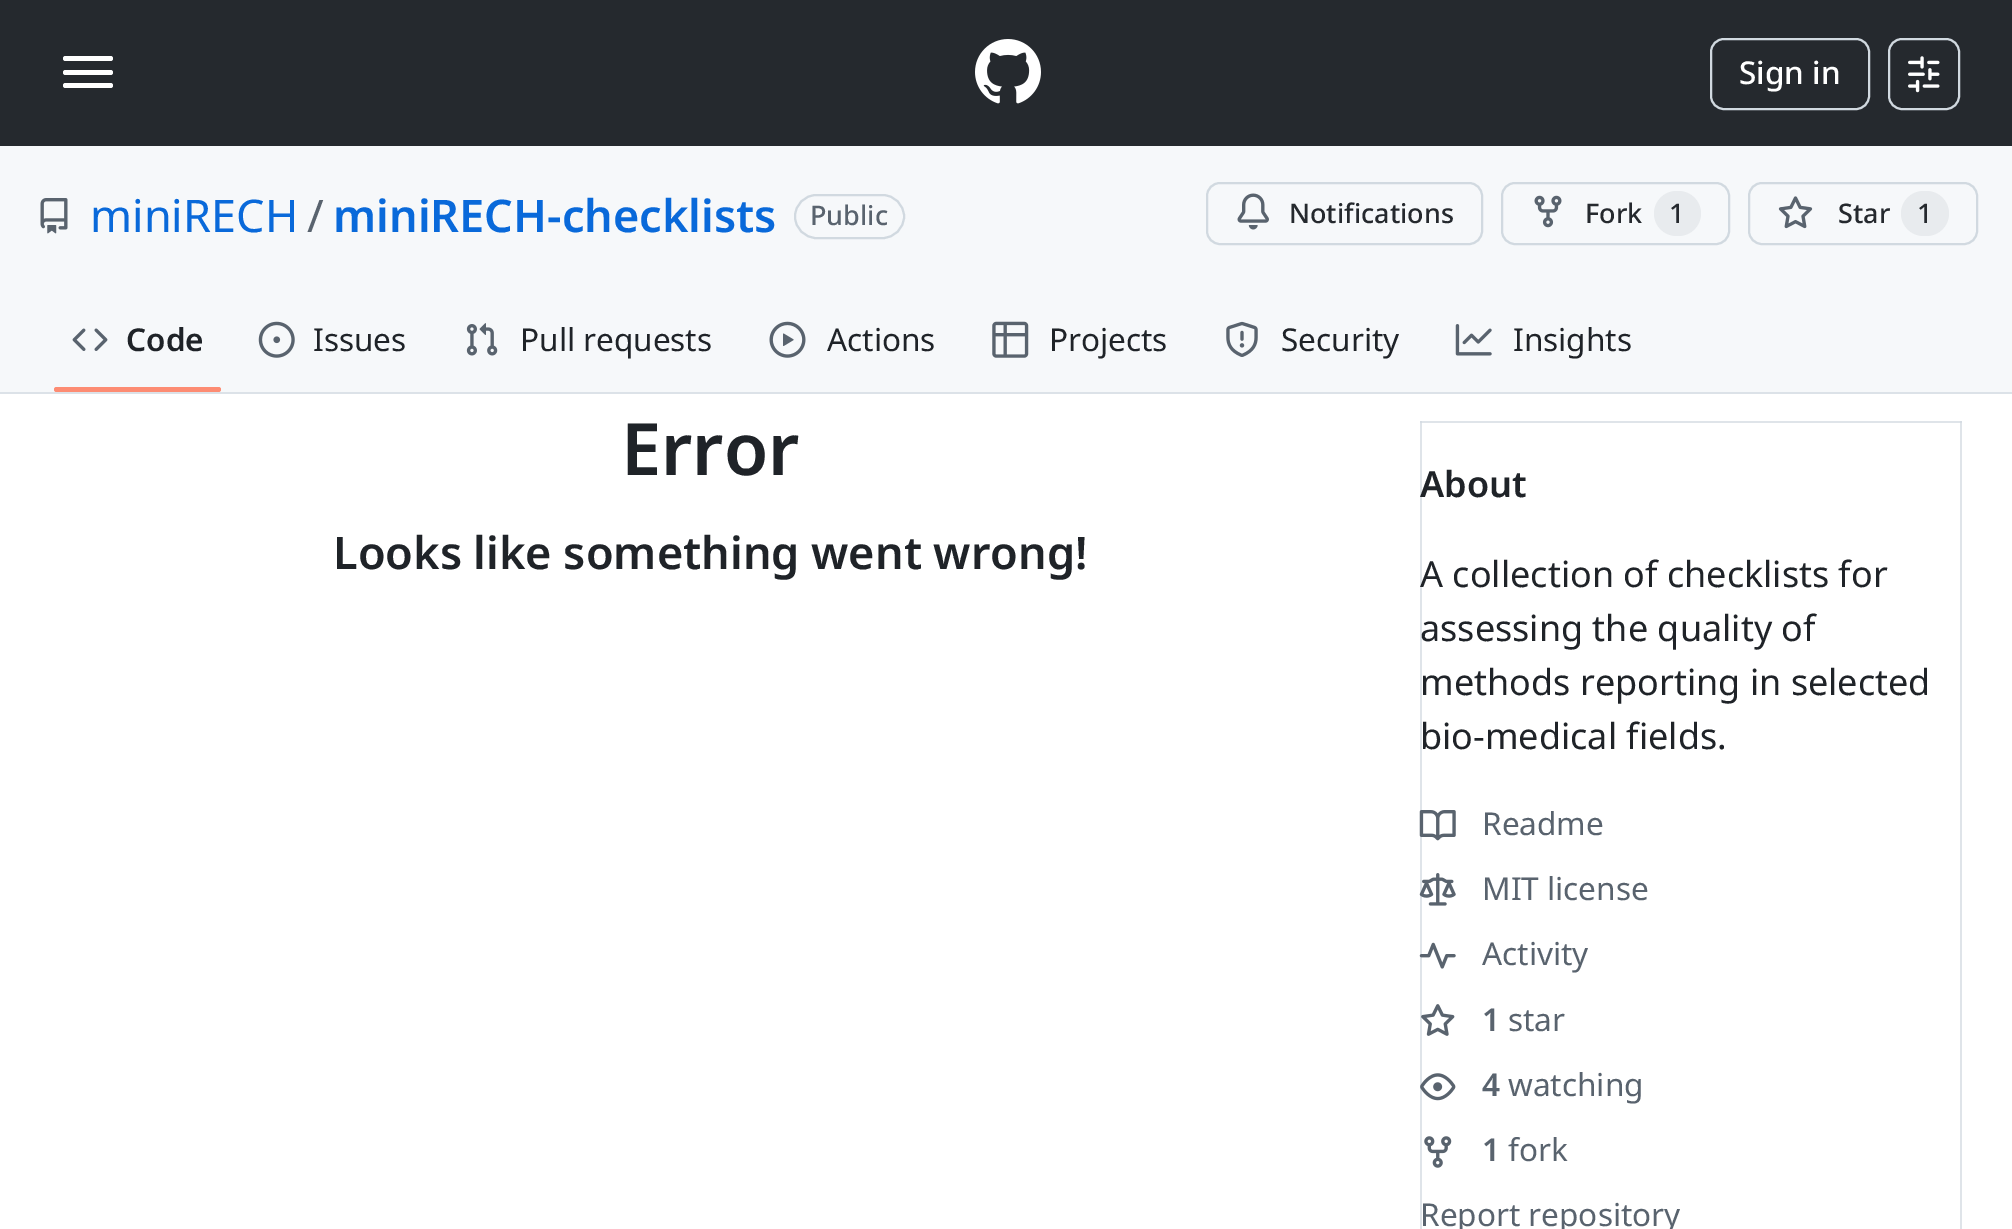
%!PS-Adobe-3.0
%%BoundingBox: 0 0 2012 1229
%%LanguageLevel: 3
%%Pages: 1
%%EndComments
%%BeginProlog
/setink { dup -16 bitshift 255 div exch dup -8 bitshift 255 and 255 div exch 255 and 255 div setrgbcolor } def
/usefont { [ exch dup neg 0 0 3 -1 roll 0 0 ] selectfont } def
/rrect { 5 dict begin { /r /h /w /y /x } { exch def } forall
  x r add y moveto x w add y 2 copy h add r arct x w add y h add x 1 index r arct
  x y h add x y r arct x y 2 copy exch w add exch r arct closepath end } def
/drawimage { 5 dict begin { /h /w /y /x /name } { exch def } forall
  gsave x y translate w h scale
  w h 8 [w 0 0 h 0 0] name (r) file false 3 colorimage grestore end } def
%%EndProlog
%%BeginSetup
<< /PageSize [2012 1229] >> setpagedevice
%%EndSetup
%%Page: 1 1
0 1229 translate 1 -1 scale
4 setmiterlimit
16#FFFFFF setink
0 0 2012 1229 rectfill
[
    [1420 421 2 808 16#DFE4E9]
    [1960 421 2 808 16#DFE4E9]
    [0 0 2012 146 16#25292E]
] { aload pop setink rectfill } forall
16#FFFFFF setink
63 56 50 5 2.5 rrect fill
63 70 50 5 2.5 rrect fill
63 83 50 5 2.5 rrect fill
(img1.raw) 975 39 66 65 drawimage
16#D1D9E0 setink
2 setlinewidth
1711 39 158 70 13 rrect stroke
/NotoSans-Medium 31.5 usefont
16#FFFFFF setink
1739 84 moveto (Sign in) show
16#D1D9E0 setink
1889 39 70 70 13 rrect stroke
(img2.raw) 1908 56 32 37 drawimage
16#F6F8FA setink
0 146 2012 246 rectfill
(img3.raw) 40 198 28 36 drawimage
/NotoSans-Regular 45 usefont
16#0969DA setink
90 232 moveto (miniRECH) show
16#59636E setink
307 232 moveto (/) show
/NotoSans-SemiBold 45 usefont
16#0969DA setink
333 232 moveto (miniRECH-checklists) show
16#D1D9E0 setink
795 195 109 43 21.5 rrect stroke
/NotoSans-Medium 27 usefont
16#59636E setink
810 225 moveto (Public) show
16#D1D9E0 setink
1207 183 275 61 13 rrect stroke
(img4.raw) 1237 193 32 37 drawimage
16#25292E setink
1289 223 moveto (Notifications) show
16#D1D9E0 setink
1502 183 227 61 13 rrect stroke
(img5.raw) 1534 195 28 33 drawimage
16#25292E setink
1585 223 moveto (Fork) show
16#E8EBEE setink
1654 191 47 45 22.5 rrect fill
16#25292E setink
1669 223 moveto (1) show
16#D1D9E0 setink
1749 183 228 61 13 rrect stroke
(img6.raw) 1778 196 35 33 drawimage
16#25292E setink
1838 223 moveto (Star) show
16#E8EBEE setink
1901 191 48 45 22.5 rrect fill
16#25292E setink
1917 223 moveto (1) show
16#DCE2E8 setink
0 392 2012 2 rectfill
(img7.raw) 72 328 36 23 drawimage
/NotoSans-SemiBold 31.5 usefont
16#1F2328 setink
126 351 moveto (Code) show
16#FD8C73 setink
54 387 167 5 2.5 rrect fill
(img8.raw) 258 321 37 37 drawimage
/NotoSans-Regular 31.5 usefont
16#1F2328 setink
313 351 moveto (Issues) show
(img9.raw) 466 323 32 33 drawimage
520 351 moveto (Pull requests) show
(img10.raw) 769 321 37 37 drawimage
827 351 moveto (Actions) show
(img11.raw) 992 321 37 37 drawimage
1049 351 moveto (Projects) show
(img12.raw) 1226 321 32 36 drawimage
1281 351 moveto (Security) show
(img13.raw) 1455 324 37 32 drawimage
1513 351 moveto (Insights) show
/NotoSans-SemiBold 72 usefont
621 475 moveto (Error) show
/NotoSans-SemiBold 45 usefont
333 569 moveto (Looks like something went wrong!) show
[
    [1420 421 542 2 16#DFE4E9]
    [1420 421 2 2 16#D5DCE3]
    [1960 421 2 2 16#D5DCE3]
] { aload pop setink rectfill } forall
/NotoSans-SemiBold 36 usefont
16#1F2328 setink
1420 497 moveto (About) show
/NotoSans-Regular 36 usefont
[
    [(A collection of checklists for) 1420 587]
    [(assessing the quality of) 1420 641]
    [(methods reporting in selected) 1420 695]
    [(bio-medical fields.) 1420 749]
] { aload pop moveto show } forall
(img14.raw) 1419 810 37 31 drawimage
/NotoSans-Regular 31.5 usefont
16#59636E setink
1482 835 moveto (Readme) show
(img15.raw) 1419 873 37 33 drawimage
1482 900 moveto (MIT license) show
(img16.raw) 1419 942 37 27 drawimage
1482 965 moveto (Activity) show
(img17.raw) 1421 1004 34 32 drawimage
/NotoSans-SemiBold 31.5 usefont
1482 1031 moveto (1) show
/NotoSans-Regular 31.5 usefont
1508 1031 moveto (star) show
(img18.raw) 1420 1073 36 28 drawimage
/NotoSans-SemiBold 31.5 usefont
1482 1096 moveto (4) show
/NotoSans-Regular 31.5 usefont
1508 1096 moveto (watching) show
(img19.raw) 1424 1136 28 32 drawimage
/NotoSans-SemiBold 31.5 usefont
1482 1161 moveto (1) show
/NotoSans-Regular 31.5 usefont
1508 1161 moveto (fork) show
1420 1226 moveto (Report repository) show
showpage
%%EOF
